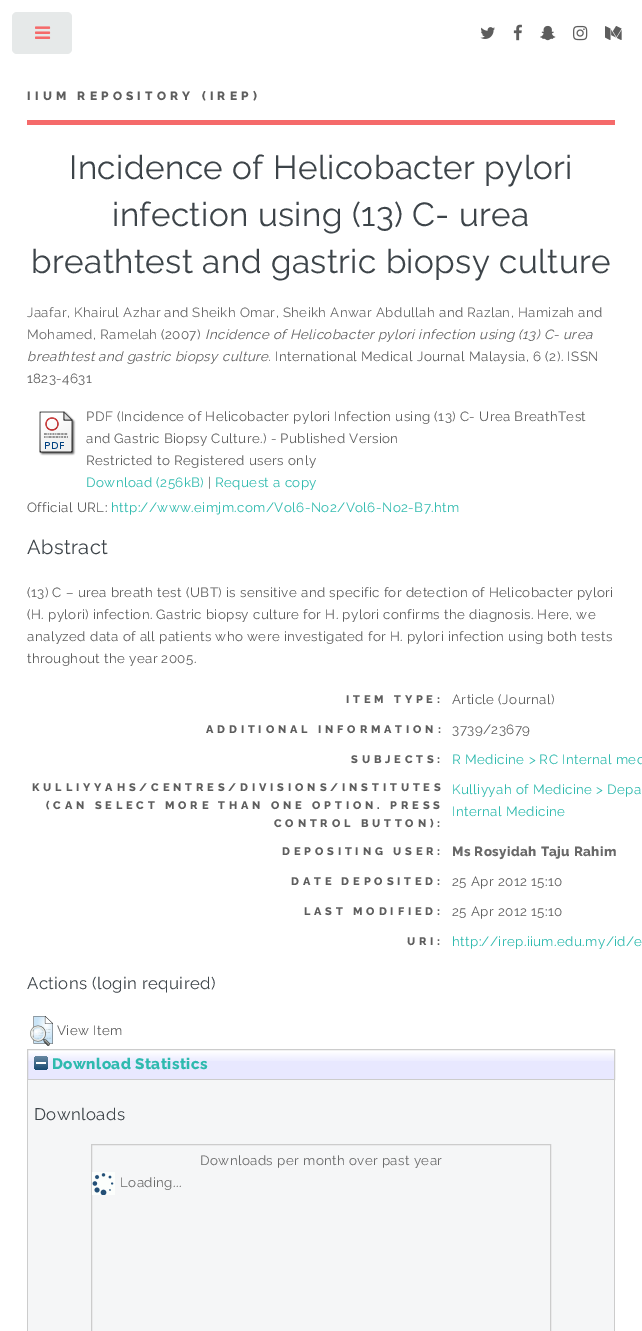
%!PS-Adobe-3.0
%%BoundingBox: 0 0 642 1331
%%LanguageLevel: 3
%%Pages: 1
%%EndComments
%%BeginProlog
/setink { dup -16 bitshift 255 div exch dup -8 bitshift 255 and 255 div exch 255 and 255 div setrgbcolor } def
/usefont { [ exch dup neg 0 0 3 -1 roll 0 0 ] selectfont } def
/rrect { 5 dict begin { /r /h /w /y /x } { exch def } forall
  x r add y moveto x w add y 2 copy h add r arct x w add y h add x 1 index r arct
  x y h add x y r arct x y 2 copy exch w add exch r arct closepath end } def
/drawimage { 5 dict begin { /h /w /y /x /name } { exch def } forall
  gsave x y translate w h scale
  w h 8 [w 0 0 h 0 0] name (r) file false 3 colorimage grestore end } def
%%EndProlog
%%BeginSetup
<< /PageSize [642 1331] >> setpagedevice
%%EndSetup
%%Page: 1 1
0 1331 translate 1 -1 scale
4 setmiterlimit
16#FFFFFF setink
0 0 642 1331 rectfill
16#E6E9E9 setink
12 12 60 42 5 rrect fill
(img1.raw) 35 26 16 13 drawimage
16#F56A6A setink
27 120 588 5 rectfill
(img2.raw) 480 27 15 12 drawimage
(img3.raw) 513 24 9 17 drawimage
(img4.raw) 540 25 16 16 drawimage
(img5.raw) 573 25 15 16 drawimage
(img6.raw) 605 26 17 14 drawimage
/Raleway-ExtraBold 12 usefont
16#5D5D5D setink
27 100 moveto 4.2 0 (IIUM REPOSITORY \(IREP\)) ashow
/Raleway-Regular 33.3 usefont
16#3D4449 setink
69 179 moveto 0.4 0 (Incidence of Helicobacter pylori) ashow
112 226 moveto 0.4 0 (infection using \(13\) C- urea) ashow
31 273 moveto 0.4 0 (breathtest and gastric biopsy culture) ashow
/Raleway-Regular 13.35 usefont
16#696969 setink
27 317 moveto 0.4 0 (Jaafar, Khairul Azhar) ashow
16#5D5D5D setink
164 317 moveto 0.4 0 (and) ashow
16#696969 setink
192 317 moveto 0.4 0 (Sheikh Omar, Sheikh Anwar Abdullah) ashow
16#5D5D5D setink
439 317 moveto 0.4 0 (and) ashow
16#696969 setink
467 317 moveto 0.4 0 (Razlan, Hamizah) ashow
16#5D5D5D setink
578 317 moveto 0.4 0 (and) ashow
16#696969 setink
27 339 moveto 0.4 0 (Mohamed, Ramelah) ashow
16#5D5D5D setink
161 339 moveto 0.4 0 (\(2007\)) ashow
/Raleway-Italic 13.35 usefont
205 339 moveto 0.4 0 (Incidence of Helicobacter pylori infection using \(13\) C- urea) ashow
27 361 moveto 0.4 0 (breathtest and gastric biopsy culture.) ashow
/Raleway-Regular 13.35 usefont
275 361 moveto 0.4 0 (International Medical Journal Malaysia, 6 \(2\). ISSN) ashow
27 383 moveto 0.4 0 (1823-4631) ashow
(img7.raw) 39 411 37 45 drawimage
86 421 moveto 0.4 0 (PDF \(Incidence of Helicobacter pylori Infection using \(13\) C- Urea BreathTest) ashow
86 443 moveto 0.4 0 (and Gastric Biopsy Culture.\) - Published Version) ashow
86 465 moveto 0.4 0 (Restricted to Registered users only) ashow
16#2EBAAE setink
86 487 moveto 0.4 0 (Download \(256kB\)) ashow
16#5D5D5D setink
208 487 moveto 0.4 0 (|) ashow
16#2EBAAE setink
215 487 moveto 0.4 0 (Request a copy) ashow
16#5D5D5D setink
27 512 moveto 0.4 0 (Official URL:) ashow
16#2EBAAE setink
111 512 moveto 0.4 0 (http://www.eimjm.com/Vol6-No2/Vol6-No2-B7.htm) ashow
/Raleway-Regular 20 usefont
16#3D4449 setink
27 554 moveto 0.4 0 (Abstract) ashow
/Raleway-Regular 13.35 usefont
16#5D5D5D setink
27 597 moveto 0.4 0 (\(13\) C – urea breath test \(UBT\) is sensitive and specific for detection of Helicobacter pylori) ashow
27 619 moveto 0.4 0 (\(H. pylori\) infection. Gastric biopsy culture for H. pylori confirms the diagnosis. Here, we) ashow
27 641 moveto 0.4 0 (analyzed data of all patients who were investigated for H. pylori infection using both tests) ashow
27 663 moveto 0.4 0 (throughout the year 2005.) ashow
/Raleway-ExtraBold 11 usefont
346 703 moveto 3.85 0 (ITEM TYPE:) ashow
/Raleway-Regular 13.35 usefont
452 704 moveto 0.4 0 (Article \(Journal\)) ashow
/Raleway-ExtraBold 11 usefont
206 733 moveto 3.85 0 (ADDITIONAL INFORMATION:) ashow
/Raleway-Regular 13.35 usefont
452 734 moveto 0.4 0 (3739/23679) ashow
/Raleway-ExtraBold 11 usefont
351 763 moveto 3.85 0 (SUBJECTS:) ashow
/Raleway-Regular 13.35 usefont
16#2EBAAE setink
452 764 moveto 0.4 0 (R Medicine > RC Internal med) ashow
/Raleway-ExtraBold 11 usefont
16#5D5D5D setink
32 791 moveto 3.85 0 (KULLIYYAHS/CENTRES/DIVISIONS/INSTITUTES) ashow
46 809 moveto 3.85 0 (\(CAN SELECT MORE THAN ONE OPTION. PRESS) ashow
274 827 moveto 3.85 0 (CONTROL BUTTON\):) ashow
/Raleway-Regular 13.35 usefont
16#2EBAAE setink
452 794 moveto 0.4 0 (Kulliyyah of Medicine > Depa) ashow
452 816 moveto 0.4 0 (Internal Medicine) ashow
/Raleway-ExtraBold 11 usefont
16#5D5D5D setink
282 855 moveto 3.85 0 (DEPOSITING USER:) ashow
/Raleway-ExtraBold 13.35 usefont
16#696969 setink
452 856 moveto 0.4 0 (Ms Rosyidah Taju Rahim) ashow
/Raleway-ExtraBold 11 usefont
16#5D5D5D setink
291 885 moveto 3.85 0 (DATE DEPOSITED:) ashow
/Raleway-Regular 13.35 usefont
452 886 moveto 0.4 0 (25 Apr 2012 15:10) ashow
/Raleway-ExtraBold 11 usefont
304 915 moveto 3.85 0 (LAST MODIFIED:) ashow
/Raleway-Regular 13.35 usefont
452 916 moveto 0.4 0 (25 Apr 2012 15:10) ashow
/Raleway-ExtraBold 11 usefont
407 945 moveto 3.85 0 (URI:) ashow
/Raleway-Regular 13.35 usefont
16#2EBAAE setink
452 946 moveto 0.4 0 (http://irep.iium.edu.my/id/e) ashow
/Raleway-Regular 16.75 usefont
16#3D4449 setink
27 989 moveto 0.4 0 (Actions \(login required\)) ashow
(img8.raw) 30 1016 23 30 drawimage
/Raleway-Regular 13.35 usefont
16#5D5D5D setink
57 1035 moveto 0.4 0 (View Item) ashow
16#E8E8FF setink
28 1051 586 28 rectfill
(img9.raw) 28 1050 586 11 drawimage
16#CCCCCC setink
27.5 1049.5 587 30 rectstroke
(img10.raw) 34 1056 14 14 drawimage
/Raleway-ExtraBold 15.25 usefont
16#2EBAAE setink
52 1069 moveto 0.4 0 (Download Statistics) ashow
[
    [28 1080 586 251 16#F5F6F7]
    [614 1080 1 251 16#CCCCCC]
    [27 1080 1 251 16#CCCCCC]
] { aload pop setink rectfill } forall
/Raleway-Regular 16.75 usefont
16#3D4449 setink
34 1120 moveto 0.4 0 (Downloads) ashow
16#CCCCCC setink
91.5 1144.5 459 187 rectstroke
/Raleway-Regular 13.35 usefont
16#696969 setink
200 1165 moveto 0.4 0 (Downloads per month over past year) ashow
(img11.raw) 92 1172 23 23 drawimage
120 1187 moveto 0.4 0 (Loading...) ashow
showpage
%%EOF
